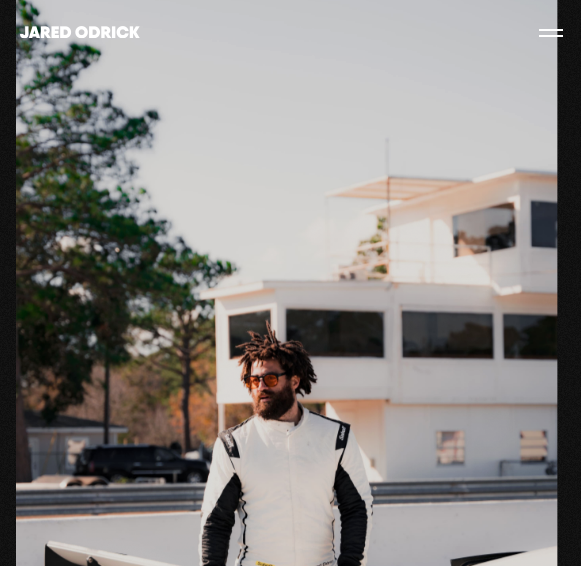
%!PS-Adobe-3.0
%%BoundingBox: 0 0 581 566
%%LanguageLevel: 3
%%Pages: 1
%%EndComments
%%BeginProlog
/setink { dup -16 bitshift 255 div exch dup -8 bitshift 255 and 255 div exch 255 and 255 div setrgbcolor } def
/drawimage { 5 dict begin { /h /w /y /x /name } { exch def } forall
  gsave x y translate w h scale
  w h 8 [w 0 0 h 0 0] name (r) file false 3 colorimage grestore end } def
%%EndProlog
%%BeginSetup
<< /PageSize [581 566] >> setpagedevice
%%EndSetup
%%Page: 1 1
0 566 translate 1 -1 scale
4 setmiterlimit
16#0D0D0D setink
0 0 581 566 rectfill
(img1.raw) 0 0 581 566 drawimage
(img2.raw) 16 0 542 566 drawimage
(img3.raw) 20 26 120 12 drawimage
16#FFFFFF setink
539 35 24 2 rectfill
539 29 24 2 rectfill
showpage
%%EOF
